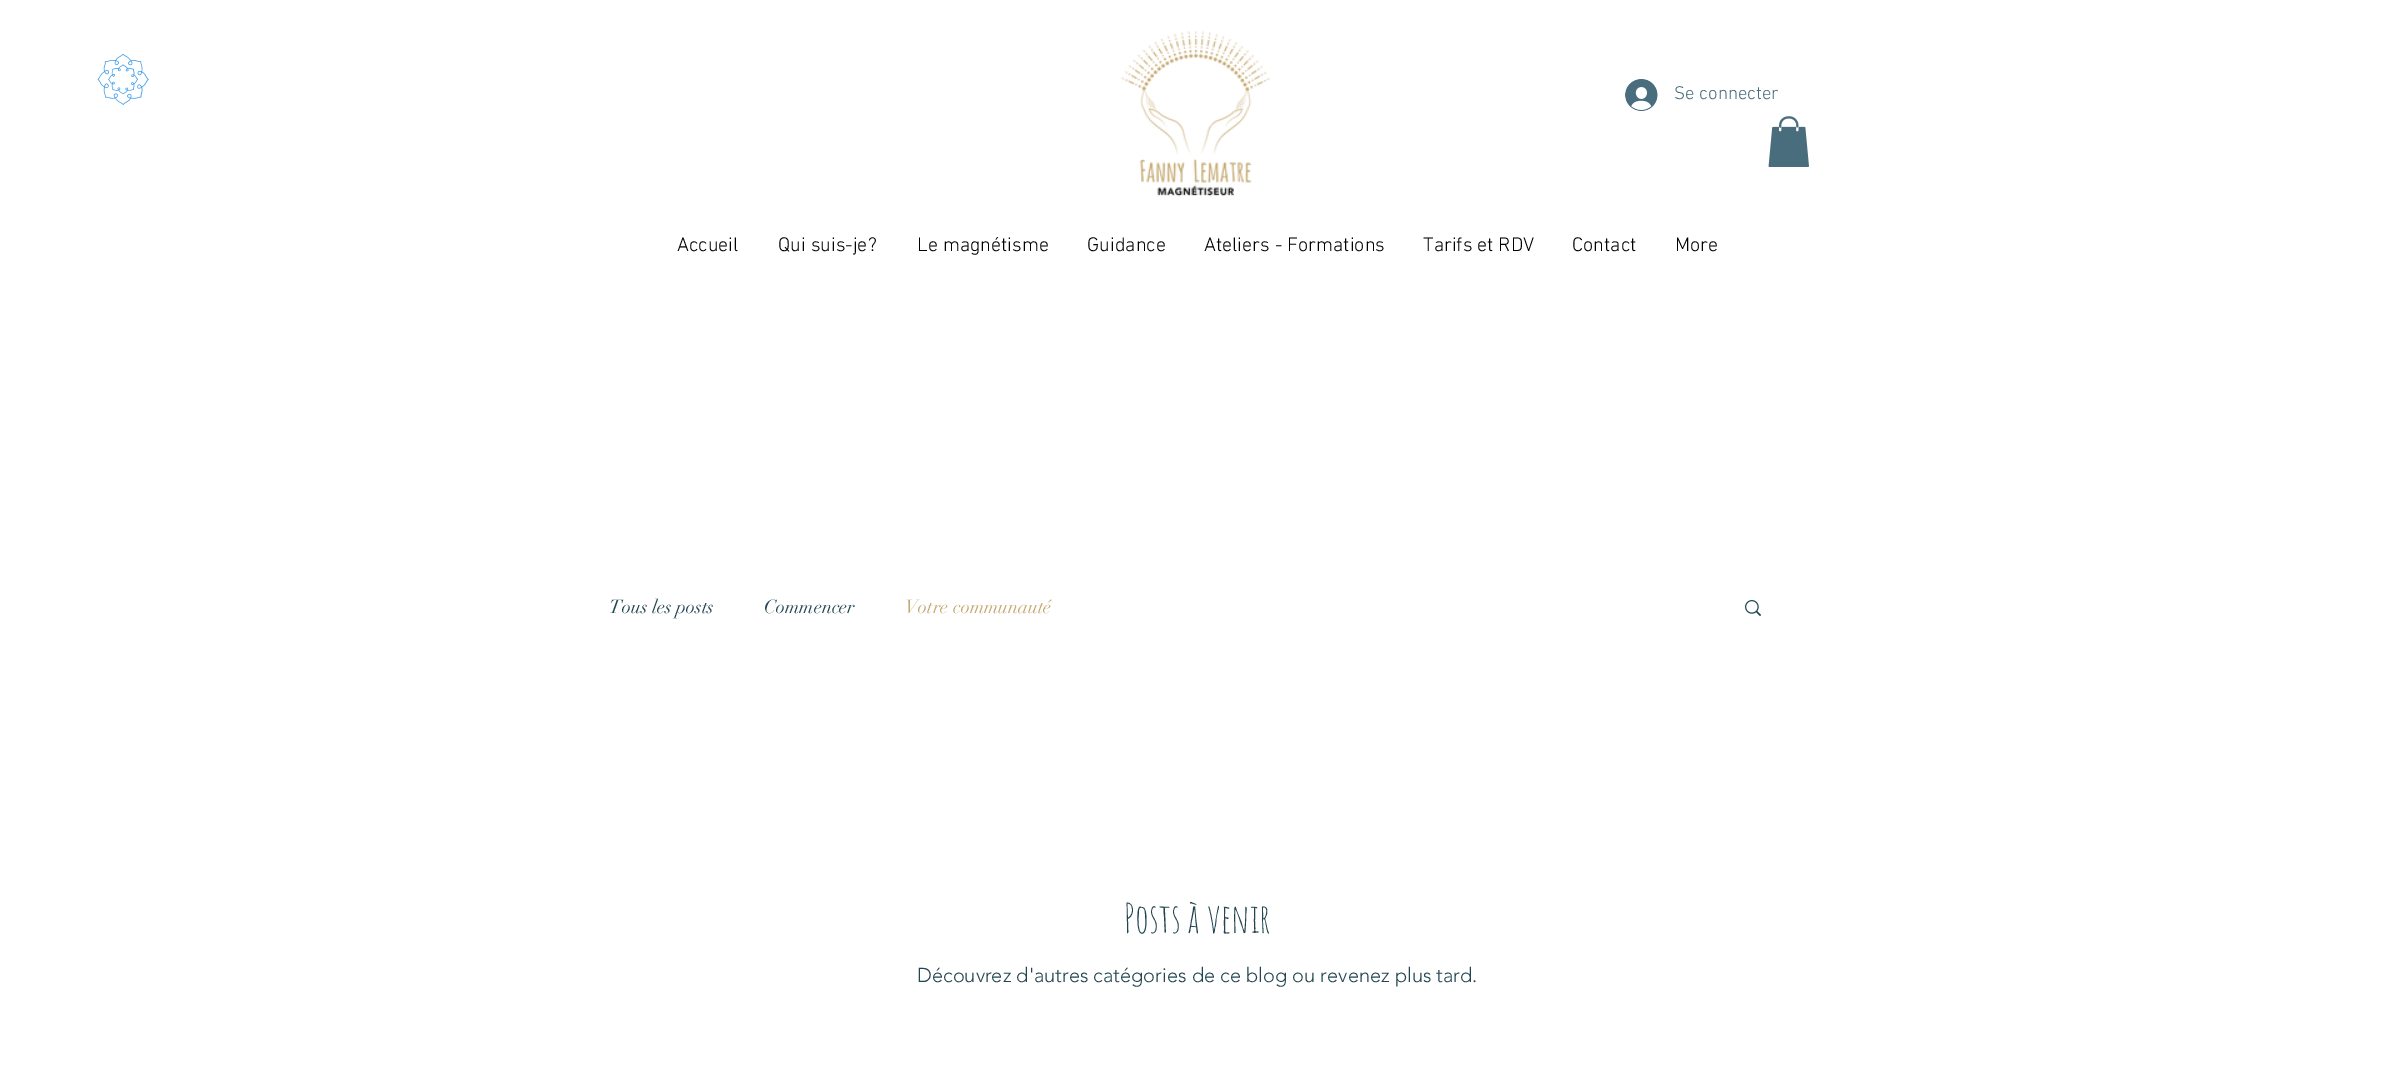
%!PS-Adobe-3.0
%%BoundingBox: 0 0 2393 1086
%%LanguageLevel: 3
%%Pages: 1
%%EndComments
%%BeginProlog
/setink { dup -16 bitshift 255 div exch dup -8 bitshift 255 and 255 div exch 255 and 255 div setrgbcolor } def
/usefont { [ exch dup neg 0 0 3 -1 roll 0 0 ] selectfont } def
/drawimage { 5 dict begin { /h /w /y /x /name } { exch def } forall
  gsave x y translate w h scale
  w h 8 [w 0 0 h 0 0] name (r) file false 3 colorimage grestore end } def
%%EndProlog
%%BeginSetup
<< /PageSize [2393 1086] >> setpagedevice
%%EndSetup
%%Page: 1 1
0 1086 translate 1 -1 scale
4 setmiterlimit
16#FFFFFF setink
0 0 2393 1086 rectfill
(img1.raw) 97 53 52 52 drawimage
(img2.raw) 1121 31 149 166 drawimage
(img3.raw) 1625 79 33 32 drawimage
/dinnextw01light-Light 18.75 usefont
16#4A6D7E setink
1674 99 moveto (Se connecter) show
(img4.raw) 1768 116 41 51 drawimage
/dinnextw01light-Light 20 usefont
16#000000 setink
[
    [(Accueil) 677 251]
    [(Qui suis-je?) 778 251]
    [(Le magnétisme) 917 251]
    [(Guidance) 1087 251]
    [(Ateliers - Formations) 1204 251]
    [(Tarifs et RDV) 1423 251]
    [(Contact) 1572 251]
    [(More) 1675 251]
] { aload pop moveto show } forall
/didot-Regular 18.75 usefont
16#224551 setink
609 613 moveto (Tous les posts) show
764 613 moveto (Commencer) show
16#C4A872 setink
905 613 moveto (Votre communauté) show
(img5.raw) 1745 600 16 16 drawimage
/AmaticSC-Regular 40 usefont
16#224551 setink
1124 933 moveto (Posts à venir) show
/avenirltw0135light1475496-Light 20 usefont
917 982 moveto (Découvrez d'autres catégories de ce blog ou revenez plus tard.) show
showpage
%%EOF
